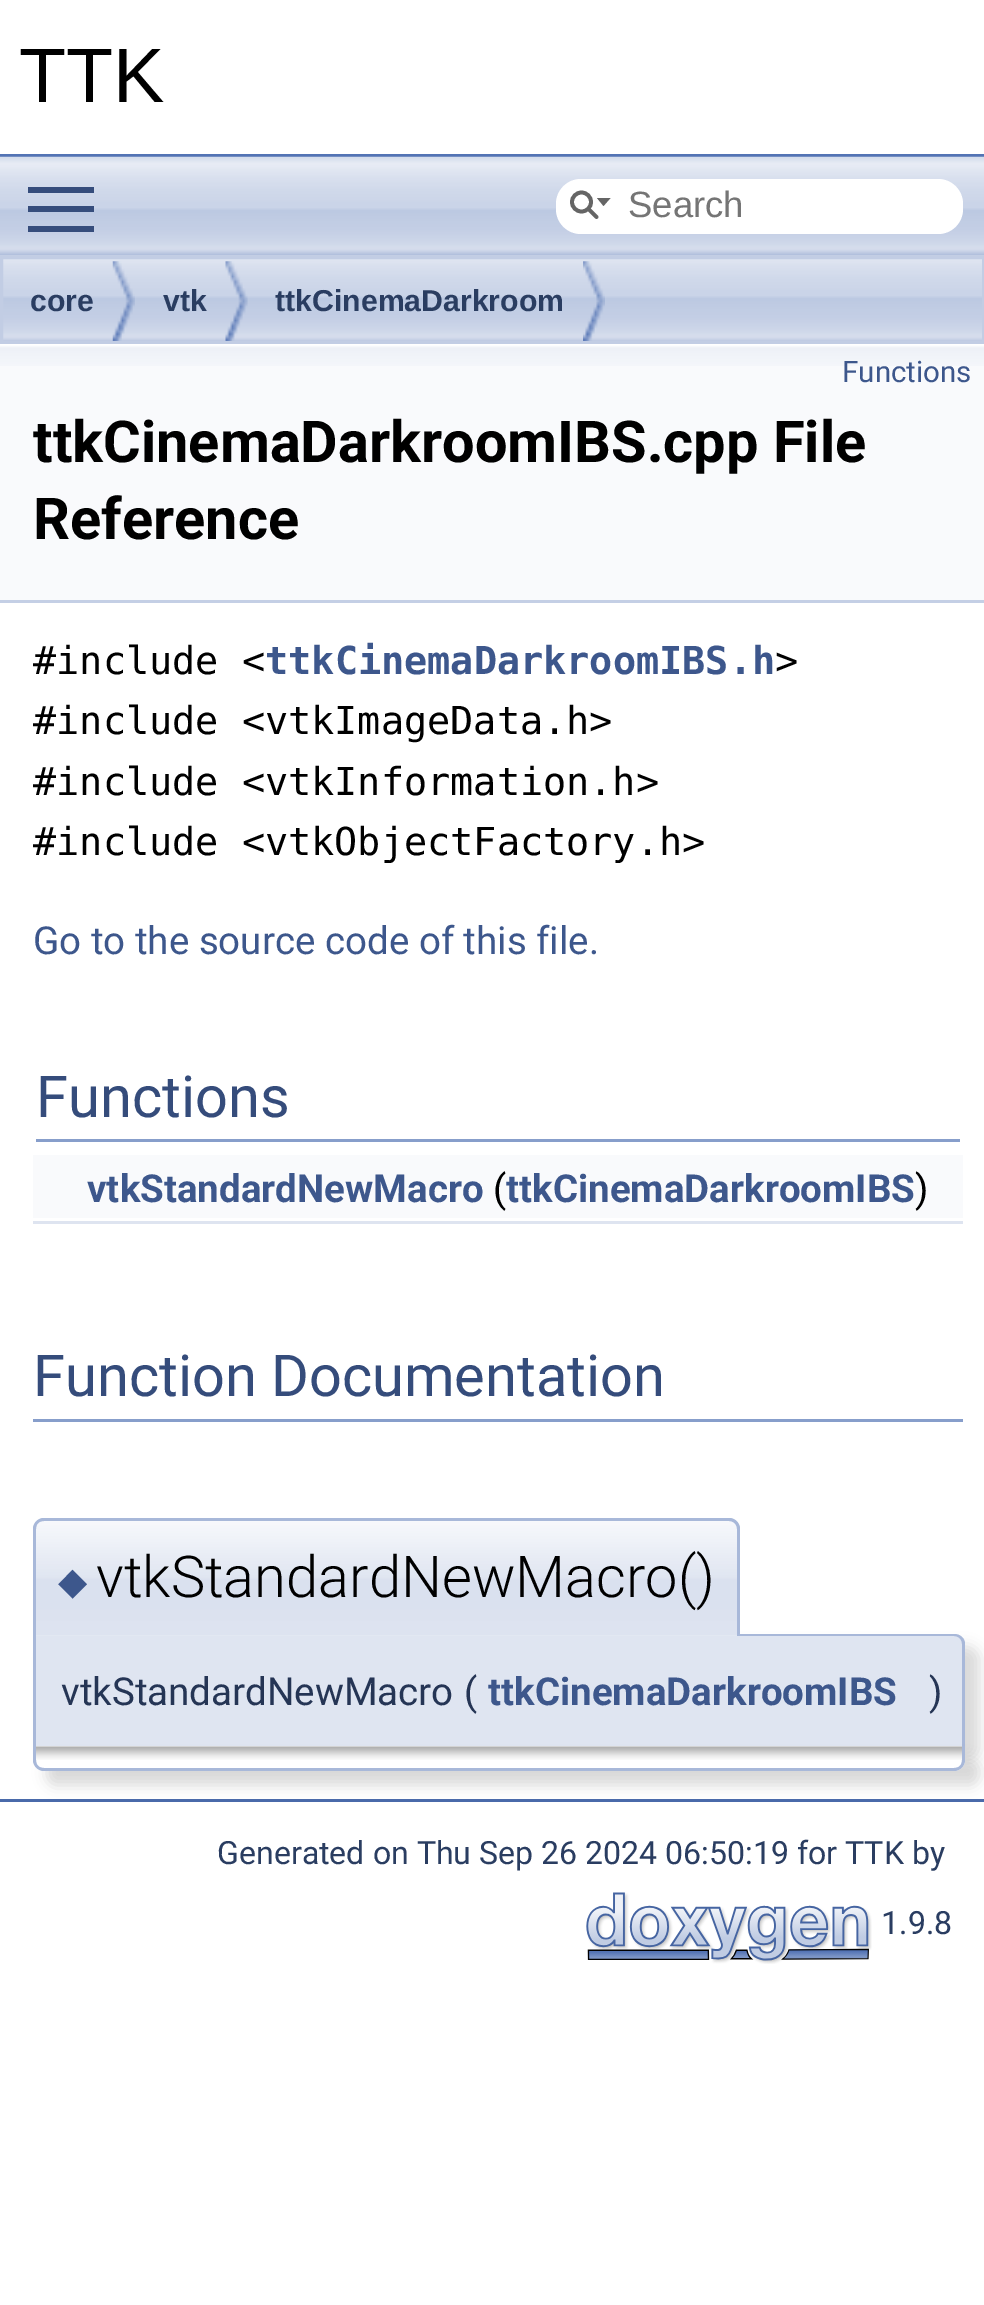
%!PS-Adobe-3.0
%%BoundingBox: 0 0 984 2305
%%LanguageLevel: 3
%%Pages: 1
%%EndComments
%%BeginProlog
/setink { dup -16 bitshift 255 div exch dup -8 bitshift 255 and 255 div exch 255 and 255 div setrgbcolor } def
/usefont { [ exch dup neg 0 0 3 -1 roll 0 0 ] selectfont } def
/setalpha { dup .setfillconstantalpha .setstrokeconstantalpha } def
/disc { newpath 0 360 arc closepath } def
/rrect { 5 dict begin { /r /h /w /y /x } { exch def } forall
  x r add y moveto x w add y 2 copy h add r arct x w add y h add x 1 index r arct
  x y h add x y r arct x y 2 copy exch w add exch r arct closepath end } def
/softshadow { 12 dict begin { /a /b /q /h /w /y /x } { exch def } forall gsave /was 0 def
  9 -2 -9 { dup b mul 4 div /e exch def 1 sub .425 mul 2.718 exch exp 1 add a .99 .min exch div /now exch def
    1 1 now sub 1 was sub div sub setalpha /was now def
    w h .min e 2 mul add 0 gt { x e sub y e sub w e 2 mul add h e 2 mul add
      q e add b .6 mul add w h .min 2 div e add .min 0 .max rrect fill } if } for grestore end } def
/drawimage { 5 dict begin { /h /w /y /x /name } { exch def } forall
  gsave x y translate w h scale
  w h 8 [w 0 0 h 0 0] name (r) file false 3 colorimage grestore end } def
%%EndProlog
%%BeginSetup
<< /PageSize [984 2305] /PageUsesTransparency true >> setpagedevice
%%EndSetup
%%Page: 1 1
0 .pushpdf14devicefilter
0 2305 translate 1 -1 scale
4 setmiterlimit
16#FFFFFF setink
0 0 984 2305 rectfill
16#5373B4 setink
0 154 984 3 rectfill
/LiberationSans-Regular 77 usefont
16#000000 setink
19 102 moveto (TTK) show
(img2.raw) 0 255 984 86 drawimage
(img1.raw) 0 156 984 100 drawimage
[
    [28 206 66 6 16#364D7C]
    [28 187 66 6 16#364D7C]
    [28 226 66 6 16#364D7C]
] { aload pop setink rectfill } forall
16#FFFFFF setink
556 179 407 55 25 rrect fill
16#656565 setink
3.8 setlinewidth
581.5 202 9.5 disc stroke
597 198 moveto 603.5 206 lineto 610.5 198 lineto closepath fill
1 setlinecap
589 209.5 moveto 596.5 217 lineto stroke
/LiberationSans-Regular 36.5 usefont
16#757575 setink
628 217 moveto (Search) show
16#C2CDE4 setink
3 setlinewidth
0 setlinecap
1.5 257.5 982 85 rectstroke
(img3.raw) 112 261 23 80 drawimage
/LiberationSans-Bold 30.25 usefont
16#2A3D61 setink
30 311 moveto (core) show
(img4.raw) 225 261 23 80 drawimage
163 311 moveto (vtk) show
(img5.raw) 583 261 22 80 drawimage
275 311 moveto (ttkCinemaDarkroom) show
16#F9FAFC setink
0 366 984 234 rectfill
(img6.raw) 0 344 984 22 drawimage
16#C4CFE5 setink
0 600 984 3 rectfill
/Roboto-Regular 29.5 usefont
16#3D578C setink
842 382 moveto (Functions) show
/Roboto-Bold 57.75 usefont
16#000000 setink
33 462 moveto (ttkCinemaDarkroomIBS.cpp File) show
33 539 moveto (Reference) show
/DejaVuSansMono-Regular 38.5 usefont
33 674 moveto (#include <) show
/DejaVuSansMono-Bold 38.5 usefont
16#3D578C setink
265 674 moveto (ttkCinemaDarkroomIBS.h) show
/DejaVuSansMono-Regular 38.5 usefont
16#000000 setink
[
    [(>) 775 674]
    [(#include <vtkImageData.h>) 33 734]
    [(#include <vtkInformation.h>) 33 795]
    [(#include <vtkObjectFactory.h>) 33 855]
] { aload pop moveto show } forall
/Roboto-Regular 38.5 usefont
16#3D578C setink
33 954 moveto (Go to the source code of this file.) show
16#879ECB setink
36 1139 924 3 rectfill
/Roboto-Regular 57.75 usefont
16#354C7B setink
36 1117 moveto (Functions) show
16#F9FAFC setink
33 1155 930 63 rectfill
/Roboto-Bold 38.5 usefont
16#3D578C setink
87 1202 moveto (vtkStandardNewMacro) show
/Roboto-Regular 38.5 usefont
16#000000 setink
493 1202 moveto (\() show
/Roboto-Bold 38.5 usefont
16#3D578C setink
506 1202 moveto (ttkCinemaDarkroomIBS) show
/Roboto-Regular 38.5 usefont
16#000000 setink
915 1202 moveto (\)) show
16#DEE4F0 setink
33 1221 930 3 rectfill
16#879ECB setink
33 1419 930 3 rectfill
/Roboto-Regular 57.75 usefont
16#354C7B setink
33 1396 moveto (Function Documentation) show
16#000000 setink
47 1647 932 113 11 7 0.15 softshadow
16#DFE5F1 setink
33 1634 moveto 954 1634 lineto 960 1634 965 1639 965 1645 curveto 965 1746 lineto 33 1746 lineto closepath fill
16#A8B8D9 setink
33 1634 moveto 954 1634 lineto 960 1634 965 1638 965 1644 curveto 965 1746 lineto 33 1746 lineto closepath 36 1636 moveto 954 1636 lineto 959 1636 962 1640 962 1644 curveto 962 1746 lineto 36 1746 lineto closepath eofill
16#E2E8F2 setink
44 1518 moveto 729 1518 lineto 735 1518 740 1523 740 1529 curveto 740 1636 lineto 33 1636 lineto 33 1529 lineto 33 1523 38 1518 44 1518 curveto closepath fill
(img7.raw) 33 1520 707 115 drawimage
16#A8B8D9 setink
44 1518 moveto 729 1518 lineto 735 1518 740 1523 740 1529 curveto 740 1636 lineto 33 1636 lineto 33 1529 lineto 33 1523 38 1518 44 1518 curveto closepath 44 1521 moveto 729 1521 lineto 733 1521 737 1524 737 1529 curveto 737 1636 lineto 36 1636 lineto 36 1529 lineto 36 1524 39 1521 44 1521 curveto closepath eofill
/DejaVuSans-Regular 38 usefont
16#3D578C setink
58 1594 moveto (◆) show
/Roboto-Light 57.75 usefont
16#000000 setink
96 1597 moveto (vtkStandardNewMacro\(\)) show
/Roboto-Regular 38.5 usefont
16#253555 setink
61 1705 moveto (vtkStandardNewMacro) show
464 1705 moveto (\() show
/Roboto-Bold 38.5 usefont
16#3D578C setink
488 1705 moveto (ttkCinemaDarkroomIBS) show
/Roboto-Regular 38.5 usefont
16#253555 setink
929 1705 moveto (\)) show
16#000000 setink
47 1760 932 25 11 7 0.15 softshadow
16#FFFFFF setink
33 1746 moveto 965 1746 lineto 965 1760 lineto 965 1766 960 1771 954 1771 curveto 44 1771 lineto 38 1771 33 1766 33 1760 curveto closepath fill
(img8.raw) 36 1746 926 14 drawimage
16#A8B8D9 setink
33 1746 moveto 965 1746 lineto 965 1760 lineto 965 1766 960 1771 954 1771 curveto 44 1771 lineto 38 1771 33 1766 33 1760 curveto closepath 36 1746 moveto 962 1746 lineto 962 1760 lineto 962 1765 959 1768 954 1768 curveto 44 1768 lineto 39 1768 36 1765 36 1760 curveto closepath eofill
16#4A6AAA setink
0 1799 984 3 rectfill
/Roboto-Regular 32.1 usefont
16#2A3D61 setink
217 1864 moveto (Generated on Thu Sep 26 2024 06:50:19 for TTK by) show
(img9.raw) 586 1892 286 72 drawimage
881 1934 moveto (1.9.8) show
.poppdf14devicefilter showpage
%%EOF
